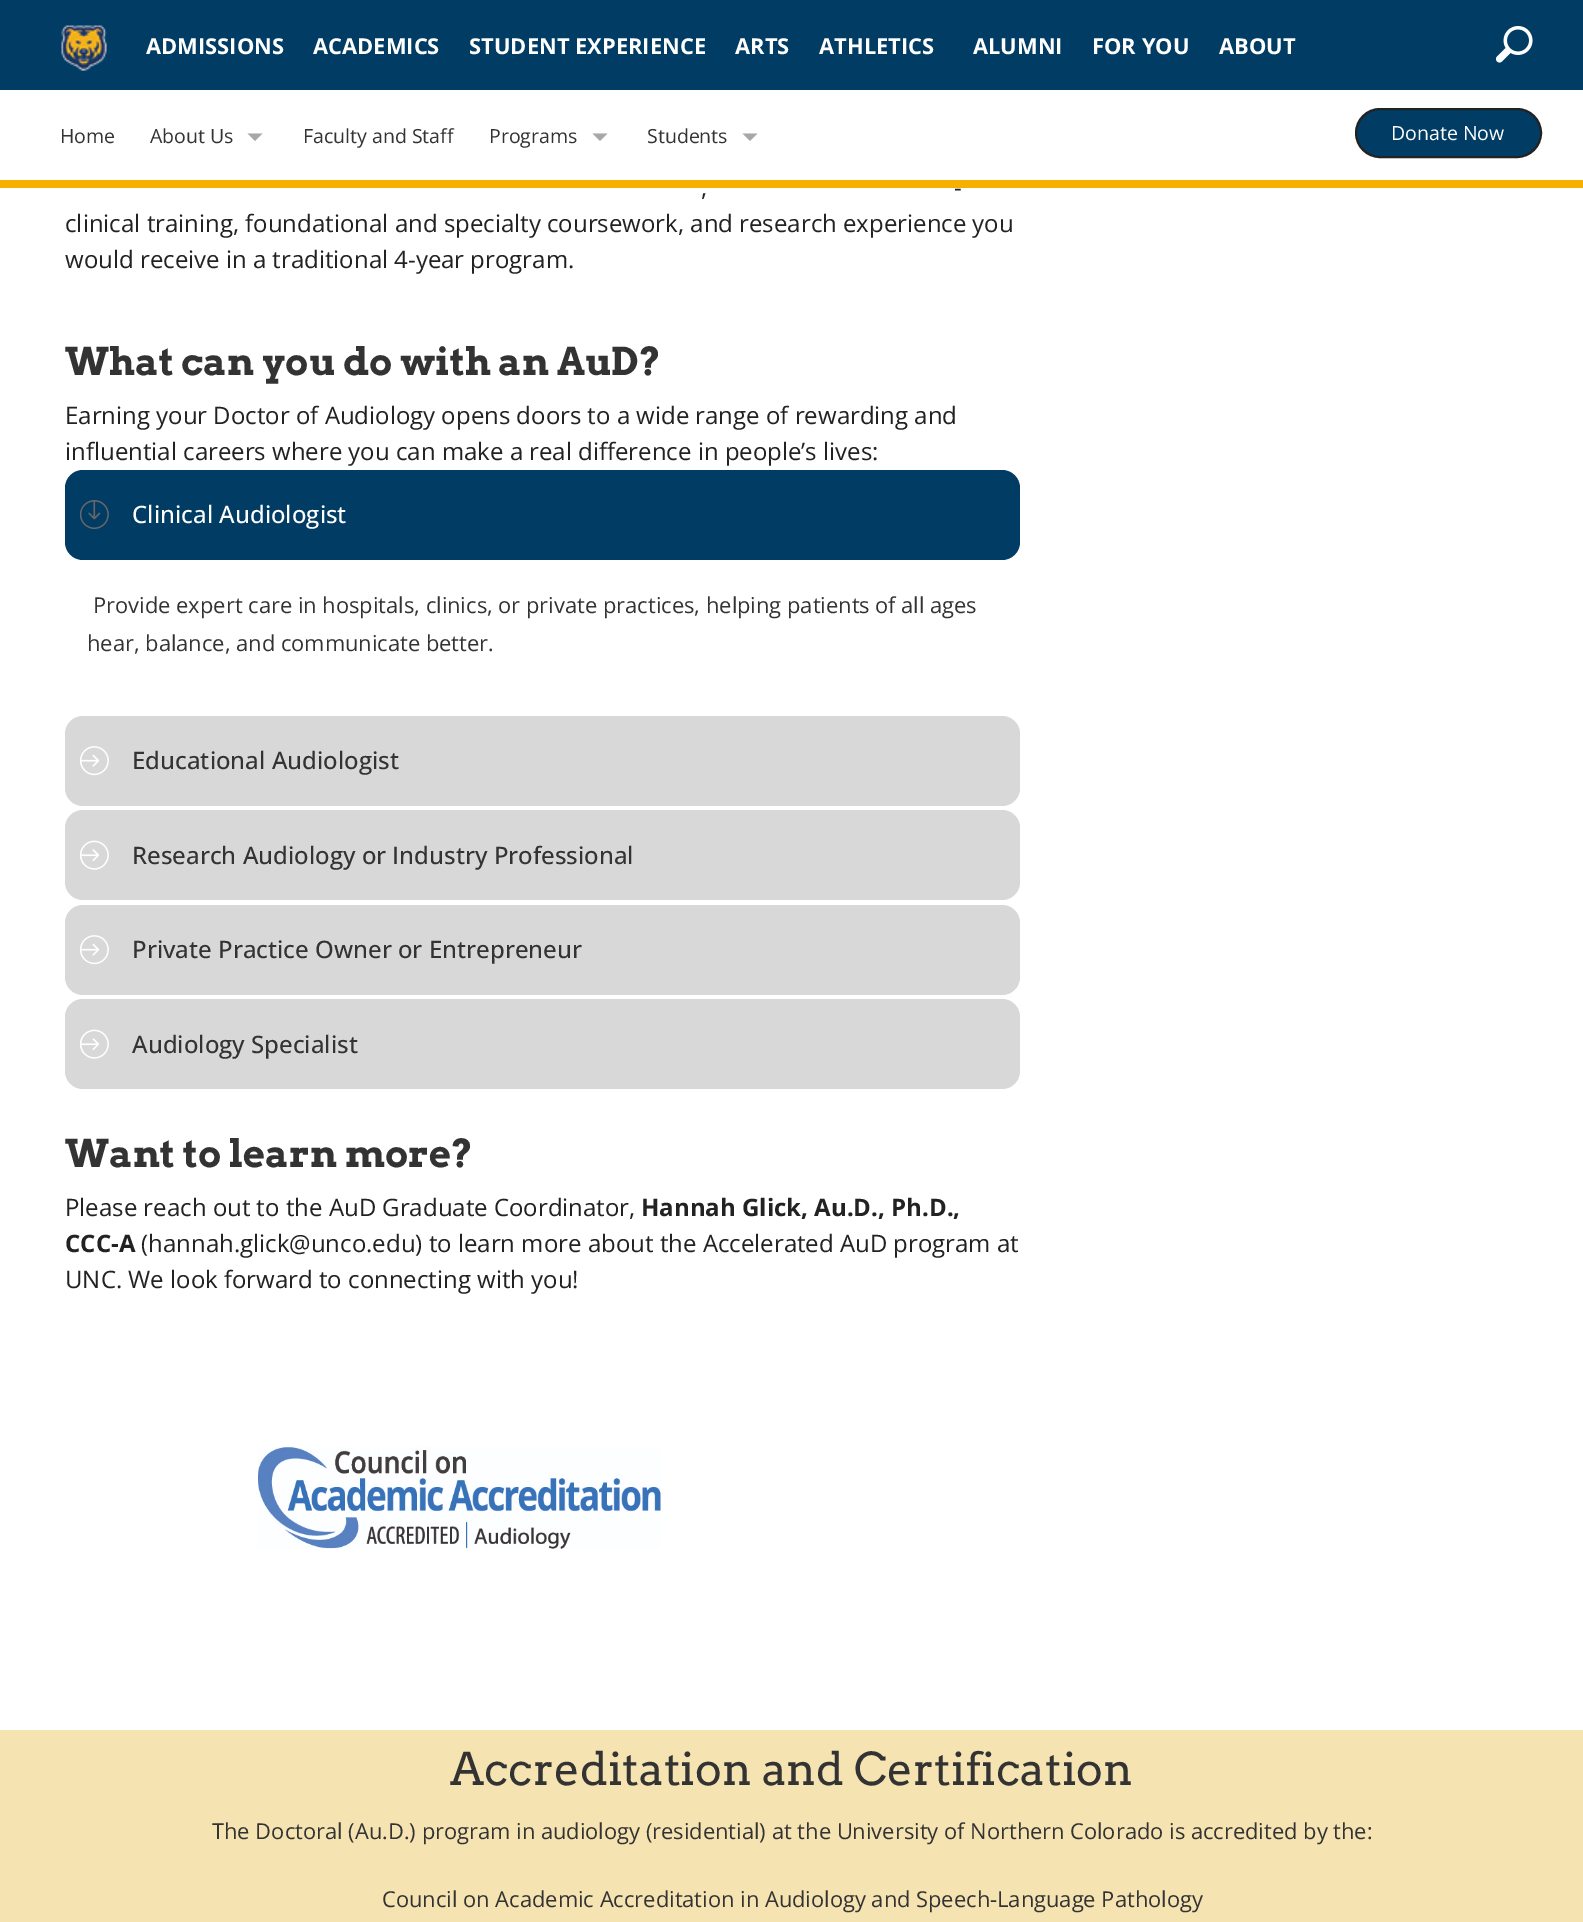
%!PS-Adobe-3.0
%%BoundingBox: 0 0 1583 1922
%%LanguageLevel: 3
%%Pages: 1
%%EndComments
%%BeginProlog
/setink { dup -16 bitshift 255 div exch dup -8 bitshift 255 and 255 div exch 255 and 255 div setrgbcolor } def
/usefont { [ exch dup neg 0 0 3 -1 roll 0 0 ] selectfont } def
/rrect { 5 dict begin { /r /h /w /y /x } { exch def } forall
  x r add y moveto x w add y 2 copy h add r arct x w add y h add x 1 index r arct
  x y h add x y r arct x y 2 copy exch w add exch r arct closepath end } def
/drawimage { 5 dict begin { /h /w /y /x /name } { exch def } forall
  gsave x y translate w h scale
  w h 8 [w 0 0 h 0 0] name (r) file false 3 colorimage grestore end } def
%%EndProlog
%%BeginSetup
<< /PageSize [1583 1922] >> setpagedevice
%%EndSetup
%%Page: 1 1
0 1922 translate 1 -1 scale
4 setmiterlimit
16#FFFFFF setink
0 0 1583 1922 rectfill
16#013C65 setink
0 0 1583 90 rectfill
(img1.raw) 61 25 46 46 drawimage
/OpenSans-Bold 21.9 usefont
16#FFFFFF setink
[
    [(ADMISSIONS) 146 54]
    [(ACADEMICS) 313 54]
    [(STUDENT EXPERIENCE) 469 54]
    [(ARTS) 735 54]
    [(ATHLETICS) 819 54]
    [(ALUMNI) 973 54]
    [(FOR YOU) 1092 54]
    [(ABOUT) 1219 54]
] { aload pop moveto show } forall
(img2.raw) 1496 26 37 37 drawimage
16#F6B000 setink
0 180 1583 8 rectfill
/OpenSans-Regular 19.5 usefont
16#333333 setink
60 143 moveto (Home) show
150 143 moveto (About Us) show
16#A7A7A7 setink
247.5 133.5 moveto 262.5 133.5 lineto 255 141 lineto closepath fill
16#333333 setink
303 143 moveto (Faculty and Staff) show
489 143 moveto (Programs) show
16#A7A7A7 setink
592.5 133.5 moveto 607.5 133.5 lineto 600 141 lineto closepath fill
16#333333 setink
647 143 moveto (Students) show
16#A7A7A7 setink
742.5 133.5 moveto 757.5 133.5 lineto 750 141 lineto closepath fill
16#013C65 setink
1356 109 185 48 24 rrect gsave fill grestore
16#222222 setink
2 setlinewidth
stroke
16#FFFFFF setink
1391 140 moveto (Donate Now) show
/OpenSans-Regular 24 usefont
16#222222 setink
[
    [(-) 954 196]
    [(,) 701 196]
    [(clinical training, foundational and specialty coursework, and research experience you) 65 232]
    [(would receive in a traditional 4-year program.) 65 268]
] { aload pop moveto show } forall
/Arvo-Bold 38.25 usefont
16#333333 setink
65 375 moveto (What can you do with an AuD?) show
/OpenSans-Regular 24 usefont
16#222222 setink
65 424 moveto (Earning your Doctor of Audiology opens doors to a wide range of rewarding and) show
65 460 moveto (influential careers where you can make a real difference in people’s lives:) show
16#013C65 setink
65 470 955 90 18 rrect fill
(img3.raw) 80 500 29 30 drawimage
/OpenSans-Medium 24 usefont
16#FFFFFF setink
132 523 moveto (Clinical Audiologist) show
/OpenSans-Regular 21.9 usefont
16#333333 setink
[
    [(Provide expert care in hospitals, clinics, or private practices, helping patients) 93 613]
    [(of all ages) 875 613]
    [(hear, balance, and communicate better.) 87 651]
] { aload pop moveto show } forall
16#D8D8D8 setink
65 716 955 90 18 rrect fill
(img4.raw) 80 746 29 30 drawimage
/OpenSans-Medium 24 usefont
16#333333 setink
132 769 moveto (Educational Audiologist) show
16#D8D8D8 setink
65 810 955 90 18 rrect fill
(img5.raw) 80 840 29 30 drawimage
16#333333 setink
132 864 moveto (Research Audiology or Industry Professional) show
16#D8D8D8 setink
65 905 955 90 18 rrect fill
(img4.raw) 80 935 29 30 drawimage
16#333333 setink
132 958 moveto (Private Practice Owner or Entrepreneur) show
16#D8D8D8 setink
65 999 955 90 18 rrect fill
(img5.raw) 80 1029 29 30 drawimage
16#333333 setink
132 1053 moveto (Audiology Specialist) show
/Arvo-Bold 38.25 usefont
65 1167 moveto (Want to learn more?) show
/OpenSans-Regular 24 usefont
16#222222 setink
65 1216 moveto (Please reach out to the AuD Graduate Coordinator,) show
/OpenSans-Bold 24 usefont
641 1216 moveto (Hannah Glick, Au.D., Ph.D.,) show
65 1252 moveto (CCC-A) show
/OpenSans-Regular 24 usefont
141 1252 moveto (\(hannah.glick@unco.edu\) to learn more about the Accelerated AuD program at) show
65 1288 moveto (UNC. We look forward to connecting with you!) show
(img6.raw) 258 1447 403 102 drawimage
16#F5E3B1 setink
0 1730 1583 192 rectfill
/Arvo-Regular 45 usefont
16#333333 setink
450 1785 moveto (Accreditation and Certification) show
/OpenSans-Regular 21.9 usefont
[
    [(The Doctoral \(Au.D.\) program in audiology \(residential\) at the University of Northern) 212 1839]
    [(Colorado is accredited by the:) 1070 1839]
    [(Council on Academic Accreditation in Audiology and Speech-Language Pathology) 382 1907]
] { aload pop moveto show } forall
showpage
%%EOF
